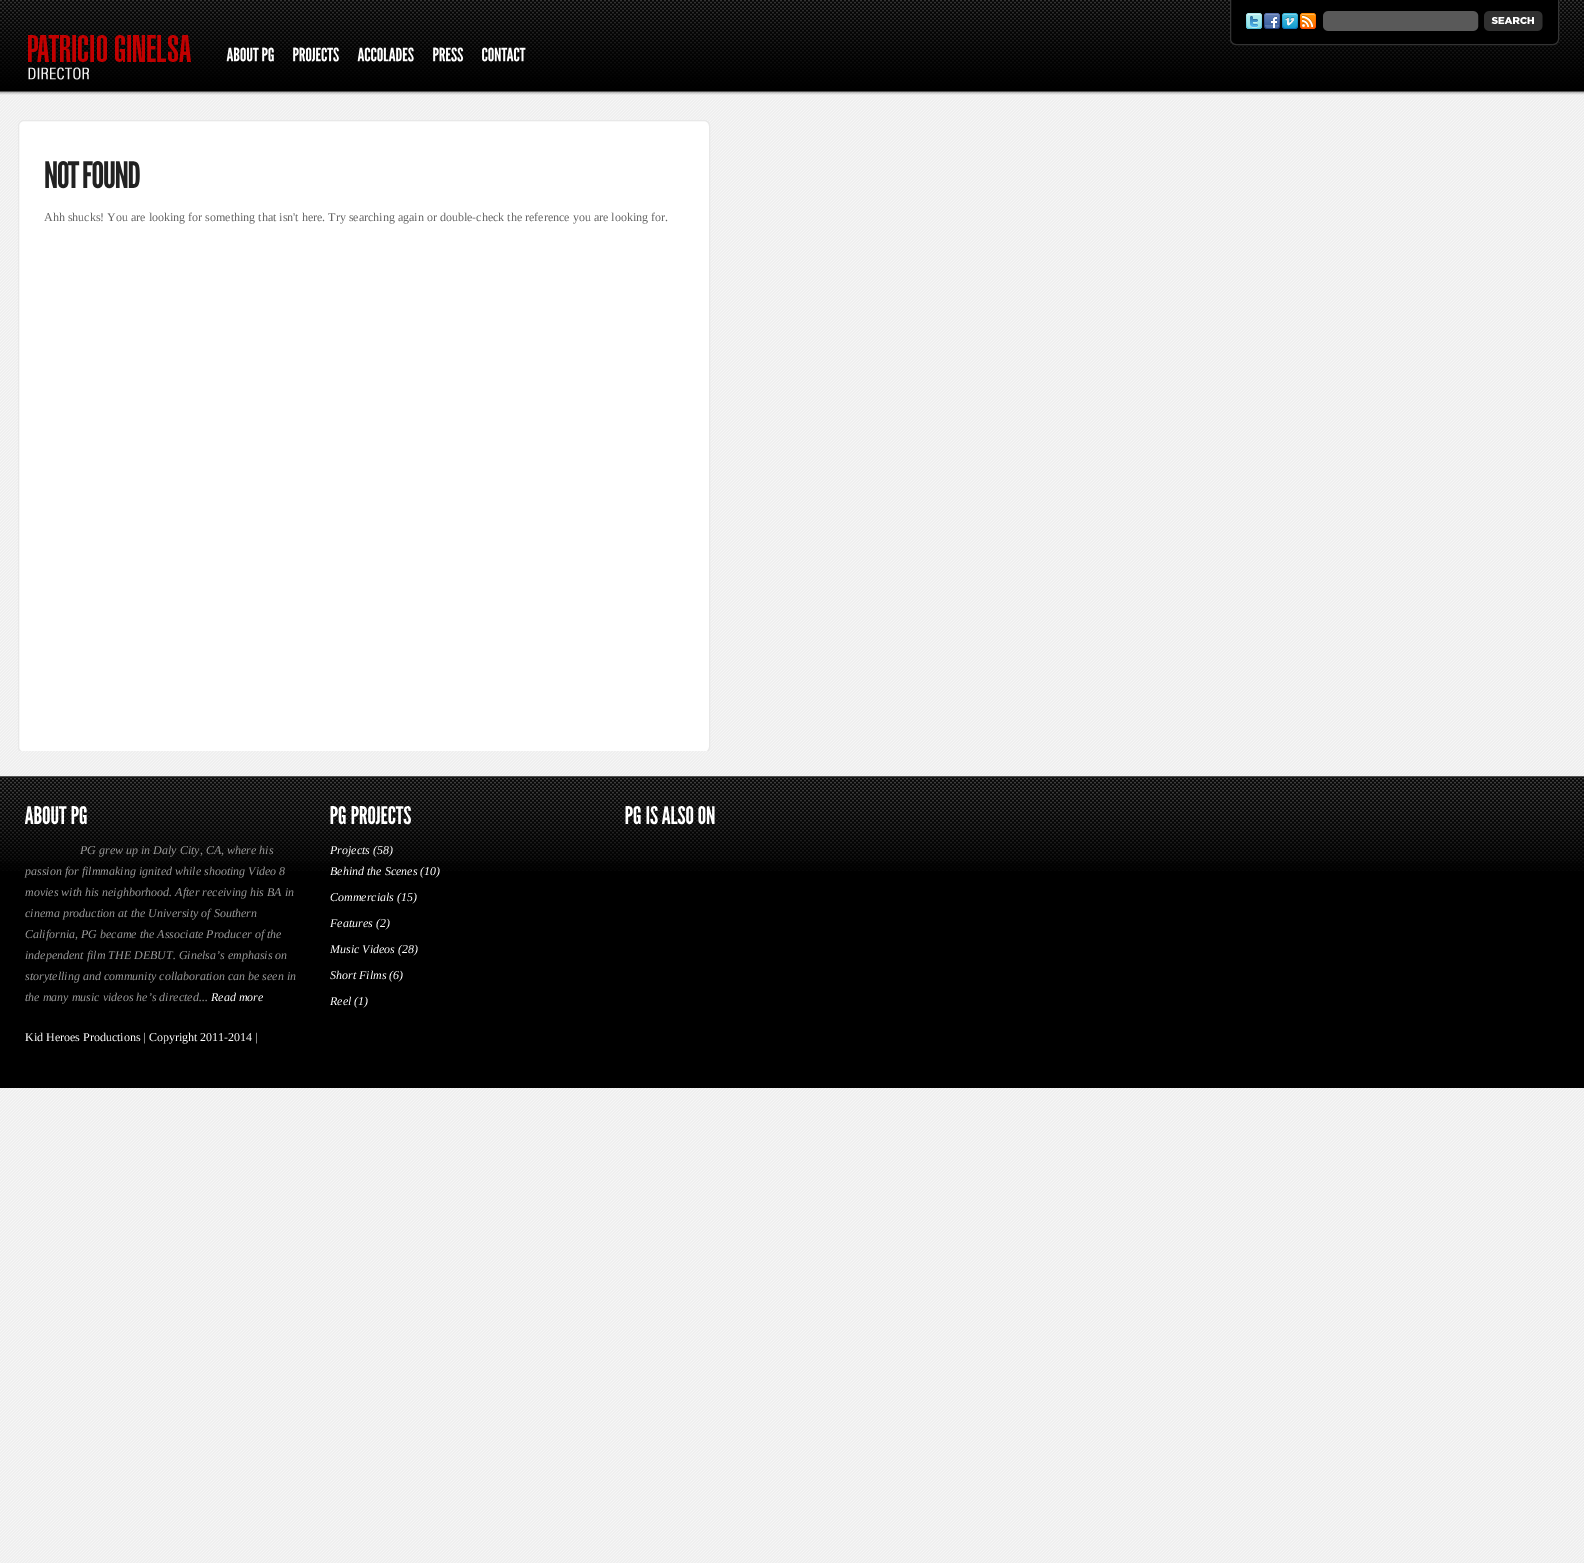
%!PS-Adobe-3.0
%%BoundingBox: 0 0 1584 1563
%%LanguageLevel: 3
%%Pages: 1
%%EndComments
%%BeginProlog
/setink { dup -16 bitshift 255 div exch dup -8 bitshift 255 and 255 div exch 255 and 255 div setrgbcolor } def
/usefont { [ exch dup neg 0 0 3 -1 roll 0 0 ] selectfont } def
/rrect { 5 dict begin { /r /h /w /y /x } { exch def } forall
  x r add y moveto x w add y 2 copy h add r arct x w add y h add x 1 index r arct
  x y h add x y r arct x y 2 copy exch w add exch r arct closepath end } def
/drawimage { 5 dict begin { /h /w /y /x /name } { exch def } forall
  gsave x y translate w h scale
  w h 8 [w 0 0 h 0 0] name (r) file false 3 colorimage grestore end } def
%%EndProlog
%%BeginSetup
<< /PageSize [1584 1563] >> setpagedevice
%%EndSetup
%%Page: 1 1
0 1563 translate 1 -1 scale
4 setmiterlimit
16#FFFFFF setink
0 0 1584 1563 rectfill
(img1.raw) 0 92 1584 1471 drawimage
(img2.raw) 0 0 1584 95 drawimage
16#000000 setink
1230.5 -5.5 328 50 5.5 rrect gsave fill grestore
16#333333 setink
stroke
(img3.raw) 1246 13 16 16 drawimage
(img4.raw) 1264 13 16 16 drawimage
(img5.raw) 1282 13 16 16 drawimage
(img6.raw) 1300 13 16 16 drawimage
(img7.raw) 1323 11 156 20 drawimage
(img8.raw) 1484 11 59 20 drawimage
(img9.raw) 28 35 163 45 drawimage
(img10.raw) 226 47 33 15 drawimage
(img11.raw) 262 47 12 15 drawimage
(img12.raw) 293 47 46 15 drawimage
(img13.raw) 357 47 57 15 drawimage
(img14.raw) 433 47 31 15 drawimage
(img15.raw) 482 47 44 15 drawimage
gsave
18 120 1566 631 rectclip
16#FFFFFF setink
18.5 120.5 691 632 5.5 rrect gsave fill grestore
16#E8E8E8 setink
stroke
grestore
(img16.raw) 45 161 35 28 drawimage
(img17.raw) 83 161 57 28 drawimage
/LiberationSerif-Regular 12 usefont
16#666666 setink
44 221 moveto (Ahh shucks! You are looking for something that isn't here. Try searching again or double-check the reference you are looking for.) show
16#000000 setink
0 871 1584 217 rectfill
(img18.raw) 0 776 1584 95 drawimage
(img19.raw) 625 806 16 19 drawimage
(img20.raw) 646 806 12 19 drawimage
(img21.raw) 661 806 33 19 drawimage
(img22.raw) 698 806 17 19 drawimage
(img23.raw) 25 806 42 19 drawimage
(img24.raw) 71 806 16 19 drawimage
/LiberationSerif-Italic 12 usefont
16#999999 setink
[
    [(PG grew up in Daly City, CA, where his) 80 854]
    [(passion for filmmaking ignited while shooting Video 8) 25 875]
    [(movies with his neighborhood. After receiving his BA in) 25 896]
    [(cinema production at the University of Southern) 25 917]
    [(California, PG became the Associate Producer of the) 25 938]
    [(independent film THE DEBUT. Ginelsa’s emphasis on) 25 959]
    [(storytelling and community collaboration can be seen in) 25 980]
    [(the many music videos he’s directed...) 25 1001]
] { aload pop moveto show } forall
16#FFFFFF setink
211 1001 moveto (Read more) show
(img25.raw) 330 806 16 19 drawimage
(img26.raw) 351 806 60 19 drawimage
[
    [(Projects \(58\)) 330 854]
    [(Behind the Scenes \(10\)) 330 875]
    [(Commercials \(15\)) 330 901]
    [(Features \(2\)) 330 927]
    [(Music Videos \(28\)) 330 953]
    [(Short Films \(6\)) 330 979]
    [(Reel \(1\)) 330 1005]
] { aload pop moveto show } forall
/LiberationSerif-Regular 12 usefont
25 1041 moveto (Kid Heroes Productions | Copyright 2011-2014 |) show
showpage
%%EOF
